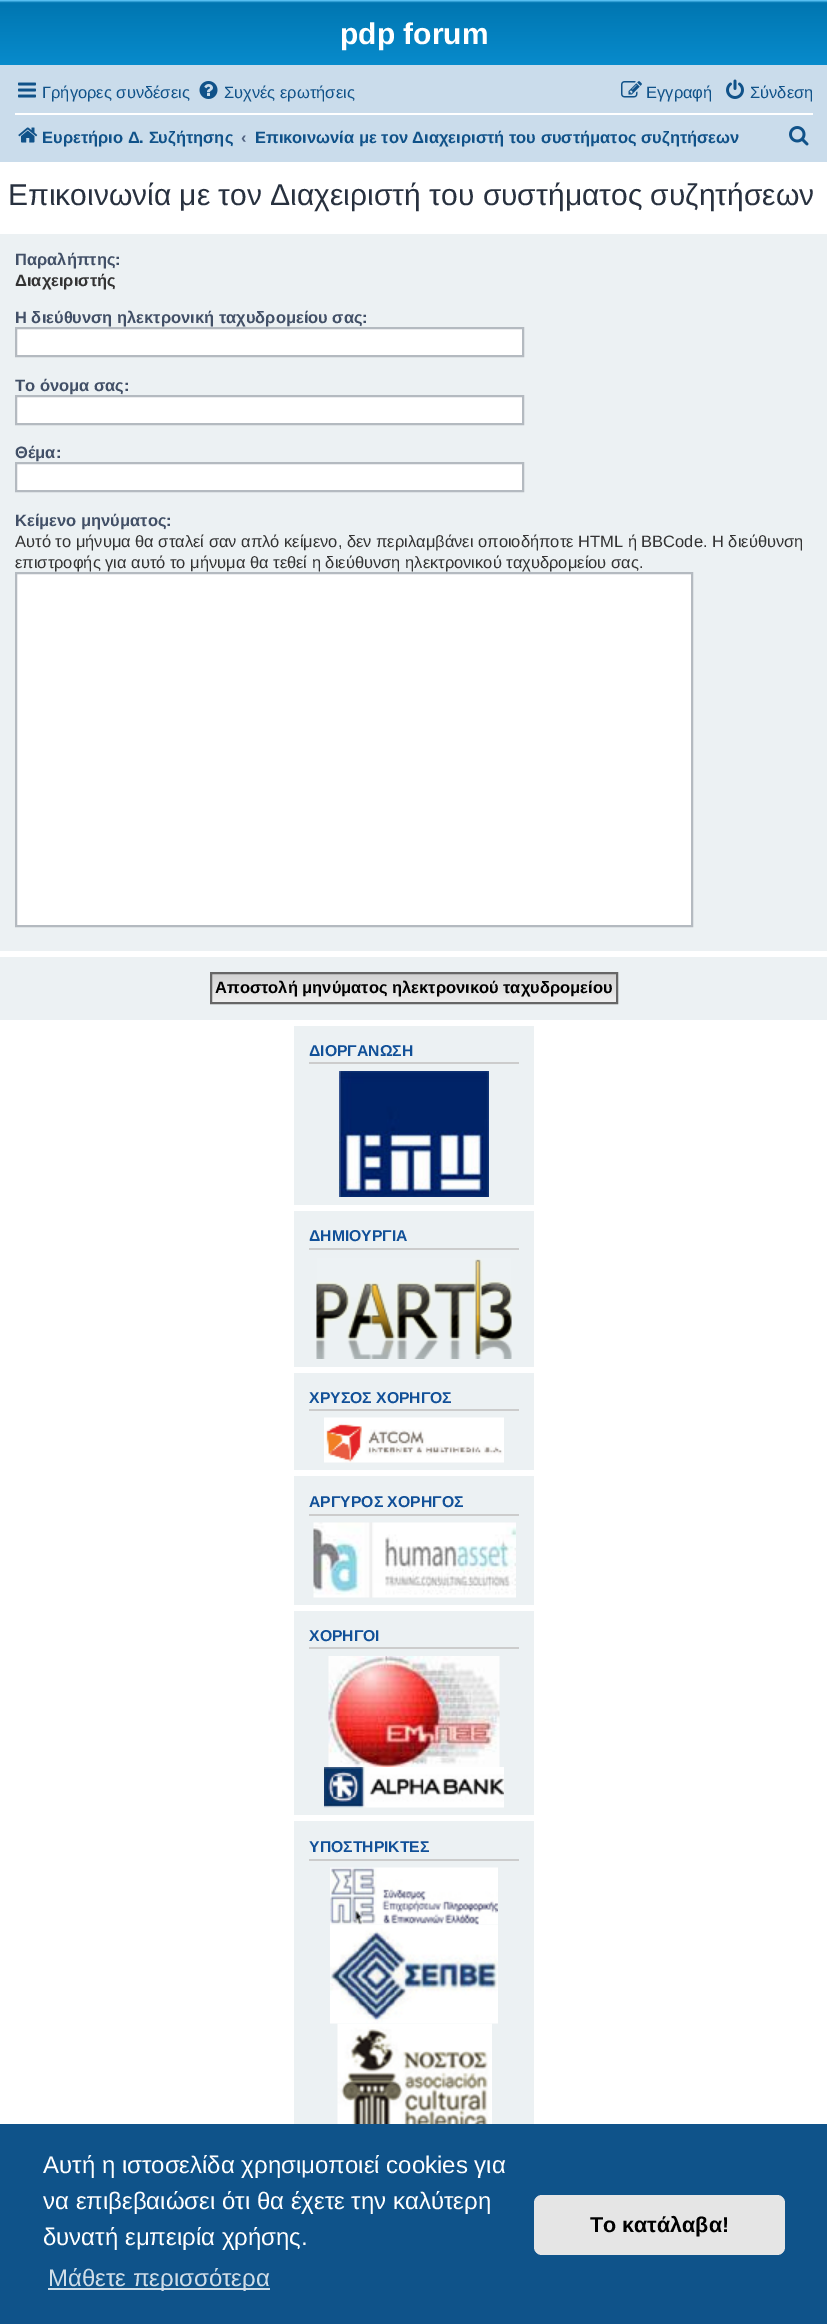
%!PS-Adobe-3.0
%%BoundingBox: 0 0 827 2324
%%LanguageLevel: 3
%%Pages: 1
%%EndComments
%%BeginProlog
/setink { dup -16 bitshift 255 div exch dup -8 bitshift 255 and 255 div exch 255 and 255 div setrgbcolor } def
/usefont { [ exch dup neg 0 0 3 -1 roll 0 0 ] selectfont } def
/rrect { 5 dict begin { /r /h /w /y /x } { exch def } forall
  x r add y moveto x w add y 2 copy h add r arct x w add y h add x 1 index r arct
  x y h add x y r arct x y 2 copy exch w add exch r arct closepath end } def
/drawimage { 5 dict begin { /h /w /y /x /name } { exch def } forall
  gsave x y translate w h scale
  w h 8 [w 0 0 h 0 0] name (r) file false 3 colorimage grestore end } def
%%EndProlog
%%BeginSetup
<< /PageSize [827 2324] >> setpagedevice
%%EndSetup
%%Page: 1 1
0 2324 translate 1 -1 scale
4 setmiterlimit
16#FFFFFF setink
0 0 827 2324 rectfill
gsave 0 0 moveto 827 0 lineto 827 65 lineto 0 65 lineto closepath clip newpath
<< /ShadingType 2 /ColorSpace /DeviceRGB /Coords [414 0 414 138] /Extend [true true] /Function << /FunctionType 3 /Domain [0 1] /Functions [<< /FunctionType 2 /Domain [0 1] /C0 [0.416 0.808 1] /C1 [0 0.463 0.694] /N 1 >> << /FunctionType 2 /Domain [0 1] /C0 [0 0.463 0.694] /C1 [0.071 0.639 0.922] /N 1 >>] /Bounds [0.02] /Encode [0 1 0 1] >> >> shfill grestore
/LiberationSans-Bold 30 usefont
340 44 moveto (pdp forum) show
16#CADCEB setink
0 65 827 97 rectfill
(img1.raw) 18 82 18 16 drawimage
/LiberationSans-Regular 16.5 usefont
16#105289 setink
42 98 moveto (Γρήγορες συνδέσεις) show
(img2.raw) 199 81 19 18 drawimage
224 98 moveto (Συχνές ερωτήσεις) show
(img3.raw) 621 81 21 17 drawimage
646 98 moveto (Εγγραφή) show
(img4.raw) 726 79 18 20 drawimage
750 98 moveto (Σύνδεση) show
16#FFFFFF setink
15 113 798 2 rectfill
(img5.raw) 18 127 20 16 drawimage
/LiberationSans-Bold 16.5 usefont
16#105289 setink
42 143 moveto (Ευρετήριο Δ. Συζήτησης) show
16#536482 setink
241 143 moveto (‹) show
16#105289 setink
255 143 moveto (Επικοινωνία με τον Διαχειριστή του συστήματος συζητήσεων) show
(img6.raw) 789 126 20 20 drawimage
/LiberationSans-Regular 30 usefont
16#28313F setink
8 205 moveto (Επικοινωνία με τον Διαχειριστή του συστήματος συζητήσεων) show
16#ECF1F3 setink
0 234 827 717 rectfill
/LiberationSans-Bold 16.5 usefont
16#425067 setink
15 265 moveto (Παραλήπτης:) show
16#333333 setink
15 286 moveto (Διαχειριστής) show
16#425067 setink
15 323 moveto (Η διεύθυνση ηλεκτρονική ταχυδρομείου σας:) show
16#FFFFFF setink
16 328 moveto 523 328 lineto 523 356 lineto 16 356 lineto closepath gsave fill grestore
16#B4BAC0 setink
2 setlinewidth
stroke
16#425067 setink
15 391 moveto (Το όνομα σας:) show
16#FFFFFF setink
16 396 moveto 523 396 lineto 523 424 lineto 16 424 lineto closepath gsave fill grestore
16#B4BAC0 setink
stroke
16#425067 setink
15 458 moveto (Θέμα:) show
16#FFFFFF setink
16 463 moveto 523 463 lineto 523 491 lineto 16 491 lineto closepath gsave fill grestore
16#B4BAC0 setink
stroke
16#425067 setink
15 526 moveto (Κείμενο μηνύματος:) show
/LiberationSans-Regular 16.5 usefont
16#333333 setink
15 547 moveto (Αυτό το μήνυμα θα σταλεί σαν απλό κείμενο, δεν περιλαμβάνει οποιοδήποτε HTML ή BBCode. Η διεύθυνση) show
15 568 moveto (επιστροφής για αυτό το μήνυμα θα τεθεί η διεύθυνση ηλεκτρονικού ταχυδρομείου σας.) show
16#FFFFFF setink
16 573 moveto 692 573 lineto 692 926 lineto 16 926 lineto closepath gsave fill grestore
16#B4BAC0 setink
stroke
16#ECF1F3 setink
0 957 827 63 rectfill
gsave 212 974 moveto 616 974 lineto 616 1002 lineto 212 1002 lineto closepath clip newpath
<< /ShadingType 2 /ColorSpace /DeviceRGB /Coords [414 974 414 1002] /Extend [true true] /Function << /FunctionType 2 /Domain [0 1] /C0 [0.824 0.824 0.824] /C1 [0.937 0.937 0.937] /N 1 >> >> shfill grestore
16#666666 setink
211 973 406 30 rectstroke
/LiberationSans-Bold 16.5 usefont
16#000000 setink
215 993 moveto (Αποστολή μηνύματος ηλεκτρονικού ταχυδρομείου) show
16#ECF1F3 setink
294 1026 240 179 rectfill
16#CCCCCC setink
309 1062 210 2 rectfill
/LiberationSans-Bold 15.75 usefont
16#115098 setink
309 1056 moveto (ΔΙΟΡΓΑΝΩΣΗ) show
(img7.raw) 339 1071 150 126 drawimage
16#ECF1F3 setink
294 1211 240 156 rectfill
16#CCCCCC setink
309 1248 210 2 rectfill
16#115098 setink
309 1241 moveto (ΔΗΜΙΟΥΡΓΙΑ) show
(img8.raw) 316 1258 196 101 drawimage
16#ECF1F3 setink
294 1373 240 97 rectfill
16#CCCCCC setink
309 1409 210 2 rectfill
16#115098 setink
309 1403 moveto (ΧΡΥΣΟΣ ΧΟΡΗΓΟΣ) show
(img9.raw) 324 1417 180 46 drawimage
16#ECF1F3 setink
294 1476 240 129 rectfill
16#CCCCCC setink
309 1514 210 2 rectfill
16#115098 setink
309 1507 moveto (ΑΡΓΥΡΟΣ ΧΟΡΗΓΟΣ) show
(img10.raw) 313 1522 203 76 drawimage
16#ECF1F3 setink
294 1611 240 204 rectfill
16#CCCCCC setink
309 1647 210 2 rectfill
16#115098 setink
309 1641 moveto (ΧΟΡΗΓΟΙ) show
(img11.raw) 328 1656 172 111 drawimage
(img12.raw) 324 1767 180 41 drawimage
16#ECF1F3 setink
294 1821 240 303 rectfill
16#CCCCCC setink
309 1859 210 2 rectfill
16#115098 setink
309 1852 moveto (ΥΠΟΣΤΗΡΙΚΤΕΣ) show
(img13.raw) 330 1867 168 58 drawimage
(img14.raw) 330 1924 168 100 drawimage
(img15.raw) 337 2023 155 101 drawimage
16#0F538A setink
0 2124 827 200 rectfill
/LiberationSans-Regular 24 usefont
16#FFFFFF setink
[
    [(Αυτή η ιστοσελίδα χρησιμοποιεί cookies για) 43 2173]
    [(να επιβεβαιώσει ότι θα έχετε την καλύτερη) 43 2209]
    [(δυνατή εμπειρία χρήσης.) 43 2245]
] { aload pop moveto show } forall
16#CFDDE8 setink
48 2288 222 2 rectfill
48 2286 moveto (Μάθετε περισσότερα) show
16#E5E5E5 setink
534 2195 251 60 8 rrect fill
/LiberationSans-Bold 21.5 usefont
16#000000 setink
590 2232 moveto (Το κατάλαβα!) show
showpage
%%EOF
